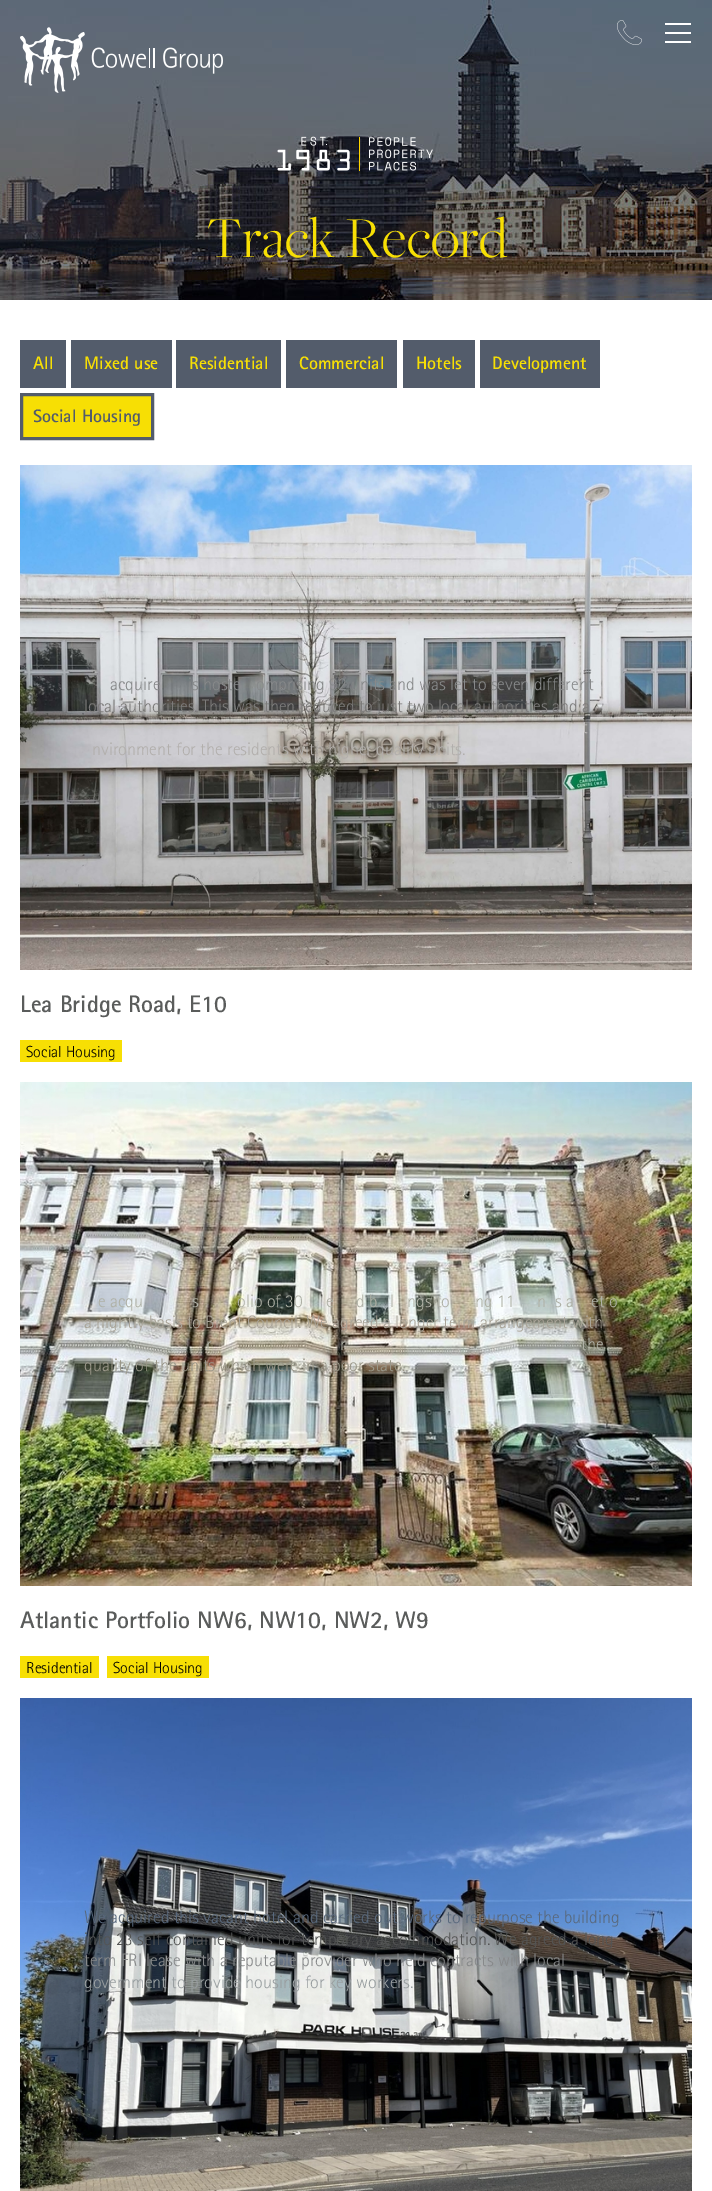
%!PS-Adobe-3.0
%%BoundingBox: 0 0 712 2191
%%LanguageLevel: 3
%%Pages: 1
%%EndComments
%%BeginProlog
/setink { dup -16 bitshift 255 div exch dup -8 bitshift 255 and 255 div exch 255 and 255 div setrgbcolor } def
/usefont { [ exch dup neg 0 0 3 -1 roll 0 0 ] selectfont } def
/drawimage { 5 dict begin { /h /w /y /x /name } { exch def } forall
  gsave x y translate w h scale
  w h 8 [w 0 0 h 0 0] name (r) file false 3 colorimage grestore end } def
%%EndProlog
%%BeginSetup
<< /PageSize [712 2191] >> setpagedevice
%%EndSetup
%%Page: 1 1
0 2191 translate 1 -1 scale
4 setmiterlimit
16#FFFFFF setink
0 0 712 2191 rectfill
(img4.raw) 0 0 712 300 drawimage
(img1.raw) 20 27 203 66 drawimage
(img2.raw) 617 20 25 25 drawimage
[
    [665 23 26 2 16#FFFFFF]
    [665 32 26 2 16#FFFFFF]
    [665 41 26 2 16#FFFFFF]
] { aload pop setink rectfill } forall
(img3.raw) 277 136 156 35 drawimage
/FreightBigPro-Light 60 usefont
16#F7DF04 setink
206 257 moveto (Track Record) show
16#535C6B setink
20 340 46 48 rectfill
/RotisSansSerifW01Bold-Bold 18 usefont
16#F7DF04 setink
33 369 moveto (All) show
16#535C6B setink
71 340 101 48 rectfill
16#F7DF04 setink
84 369 moveto (Mixed use) show
16#535C6B setink
176 340 105 48 rectfill
16#F7DF04 setink
189 369 moveto (Residential) show
16#535C6B setink
286 340 111 48 rectfill
16#F7DF04 setink
299 369 moveto (Commercial) show
16#535C6B setink
403 340 72 48 rectfill
16#F7DF04 setink
416 369 moveto (Hotels) show
16#535C6B setink
480 340 120 48 rectfill
16#F7DF04 setink
492 369 moveto (Development) show
21.5 394.5 moveto 152.5 394.5 lineto 152.5 438.5 lineto 21.5 438.5 lineto closepath gsave fill grestore
16#535C6B setink
3 setlinewidth
stroke
33 422 moveto (Social Housing) show
(img5.raw) 20 465 672 505 drawimage
/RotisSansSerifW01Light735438-Light 18 usefont
16#87898A setink
[
    [(acquire) 110 690]
    [(is hoste) 188 690]
    [(omprising 92 units and was let to seven different) 256 690]
] { aload pop moveto show } forall
16#7C7B7A setink
84 712 moveto (local authorities. This was then reduced to just two local authorities and a) show
16#C1BEBD setink
582 733 moveto (t) show
16#B2AFAC setink
92 755 moveto (nvironment for the residents with higher quality units.) show
/RotisSansSerifW01Bold-Bold 24 usefont
16#5A5C5B setink
20 1012 moveto (Lea Bridge Road, E10) show
16#F7DF04 setink
20 1040 102 22 rectfill
/RotisSansSerifW01Light735438-Light 16 usefont
16#000000 setink
26 1057 moveto (Social Housing) show
(img6.raw) 20 1082 672 504 drawimage
/RotisSansSerifW01Light735438-Light 18 usefont
16#AFB1A6 setink
[
    [(e acqu) 98 1307]
    [(s) 192 1307]
    [(olio of 30) 237 1307]
    [(e) 326 1307]
    [(d b) 356 1307]
    [(l) 390 1307]
    [(ngs to) 407 1307]
    [(ng 11) 475 1307]
    [(n) 537 1307]
    [(s a) 555 1307]
    [(et o) 591 1307]
] { aload pop moveto show } forall
16#A9A498 setink
84 1328 moveto (a nightly basis to Brent Council. We agreed a longer term arrangement with) show
16#AFB1A6 setink
[
    [(r) 206 1350]
    [(r) 340 1350]
    [(the) 581 1350]
] { aload pop moveto show } forall
16#9A9789 setink
84 1371 moveto (quality of the units which were in a poor state.) show
/RotisSansSerifW01Bold-Bold 24 usefont
16#5A5C5B setink
20 1628 moveto (Atlantic Portfolio NW6, NW10, NW2, W9) show
16#F7DF04 setink
20 1656 79 22 rectfill
/RotisSansSerifW01Light735438-Light 16 usefont
16#000000 setink
26 1673 moveto (Residential) show
16#F7DF04 setink
107 1656 102 22 rectfill
16#000000 setink
113 1673 moveto (Social Housing) show
(img7.raw) 20 1698 672 493 drawimage
/RotisSansSerifW01Light735438-Light 18 usefont
16#59697D setink
84 1923 moveto (We acquired this vacant hotel and carried out works to repurpose the building) show
16#545555 setink
84 1945 moveto (into 23 self contained units for temporary accommodation. We agreed a long) show
16#87898A setink
84 1966 moveto (term FRI lease with a reputable provider who held contracts with local) show
16#999FA1 setink
84 1988 moveto (government to provide housing for key workers.) show
showpage
%%EOF
